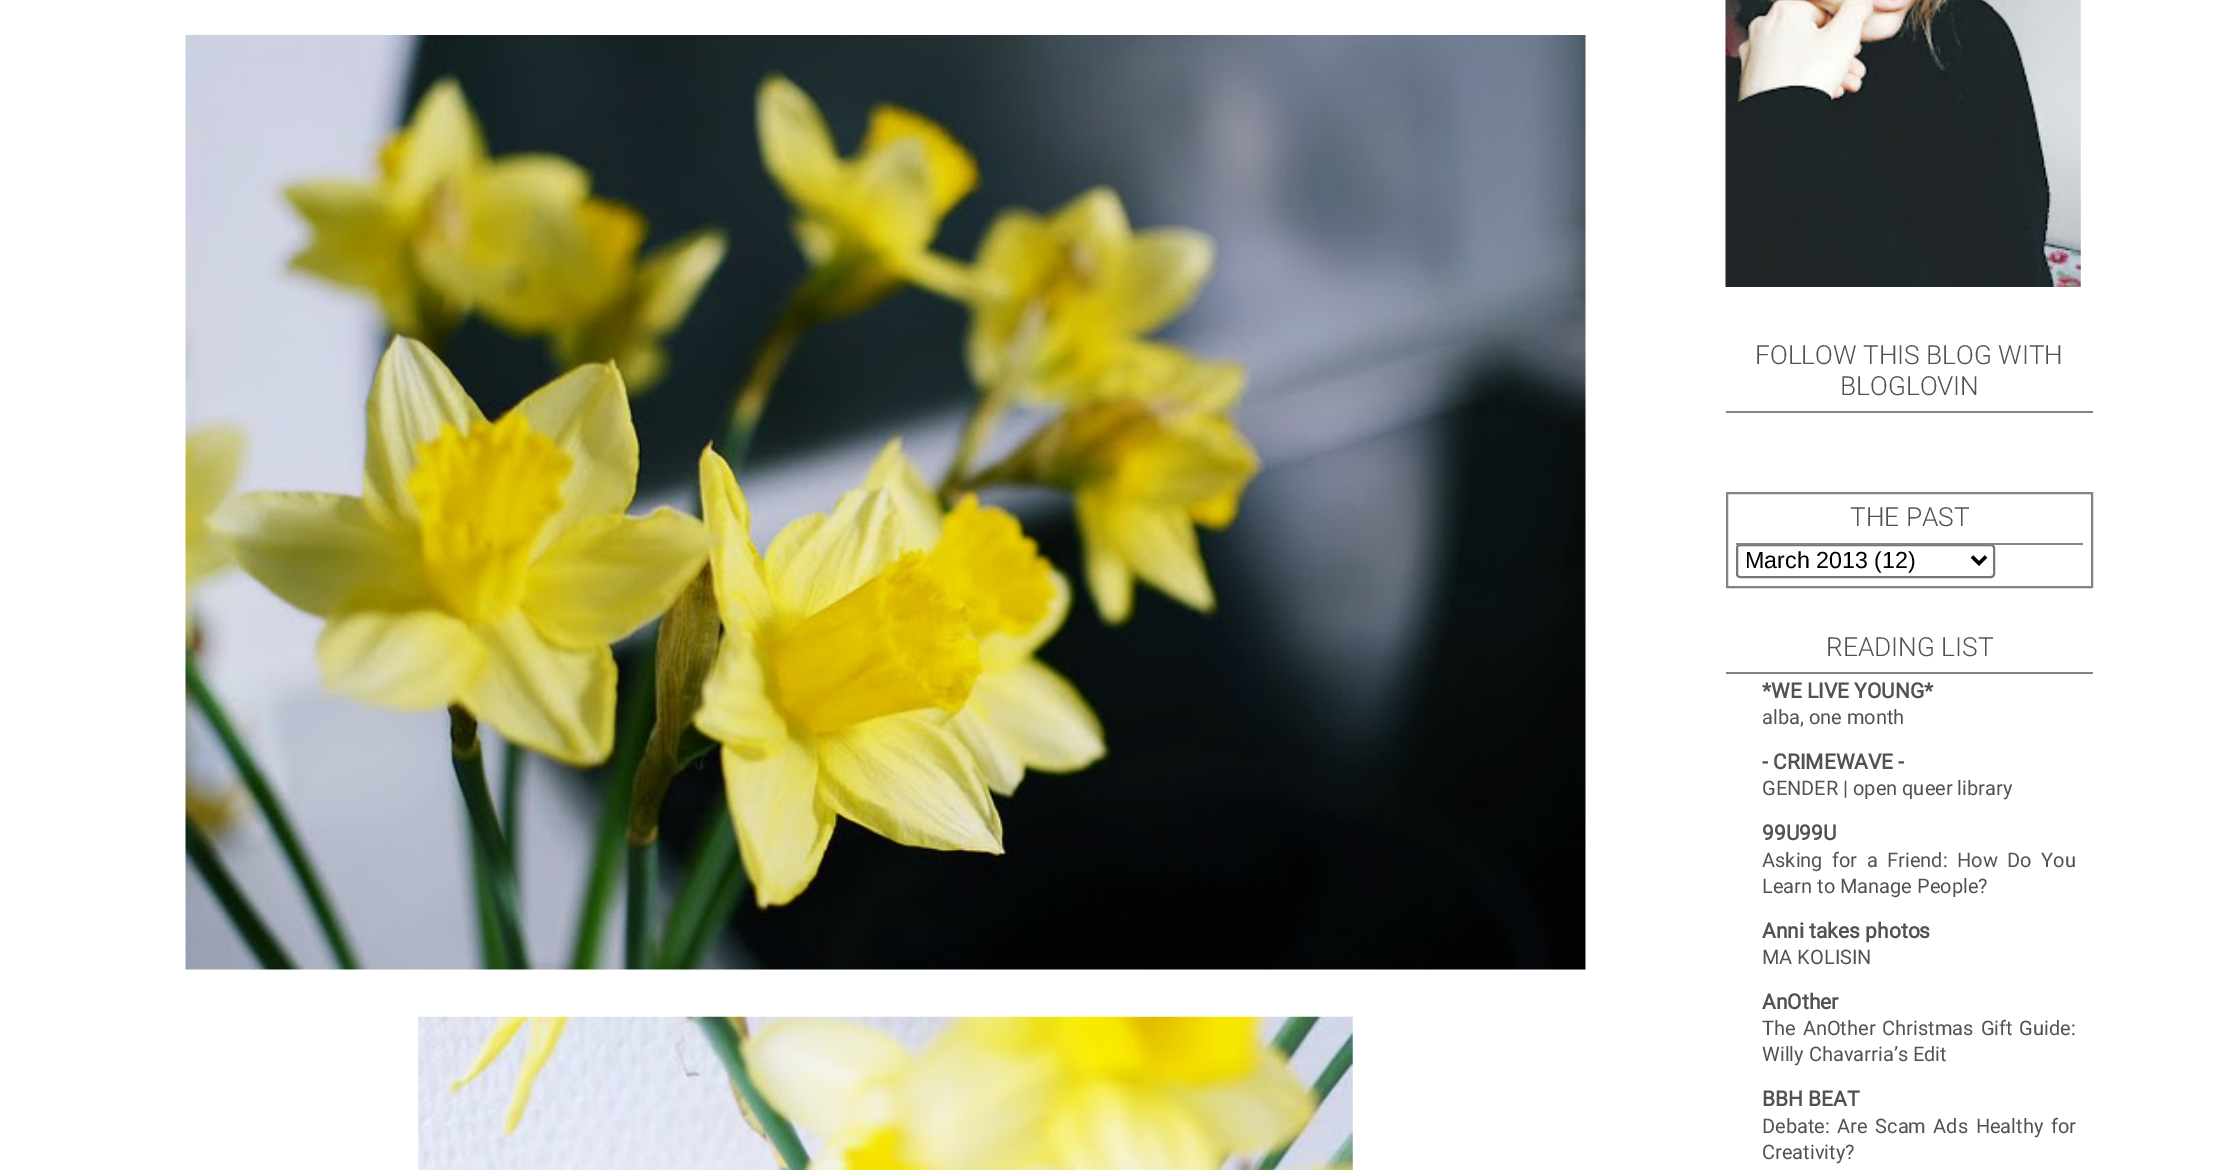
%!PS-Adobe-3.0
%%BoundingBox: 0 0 2226 1170
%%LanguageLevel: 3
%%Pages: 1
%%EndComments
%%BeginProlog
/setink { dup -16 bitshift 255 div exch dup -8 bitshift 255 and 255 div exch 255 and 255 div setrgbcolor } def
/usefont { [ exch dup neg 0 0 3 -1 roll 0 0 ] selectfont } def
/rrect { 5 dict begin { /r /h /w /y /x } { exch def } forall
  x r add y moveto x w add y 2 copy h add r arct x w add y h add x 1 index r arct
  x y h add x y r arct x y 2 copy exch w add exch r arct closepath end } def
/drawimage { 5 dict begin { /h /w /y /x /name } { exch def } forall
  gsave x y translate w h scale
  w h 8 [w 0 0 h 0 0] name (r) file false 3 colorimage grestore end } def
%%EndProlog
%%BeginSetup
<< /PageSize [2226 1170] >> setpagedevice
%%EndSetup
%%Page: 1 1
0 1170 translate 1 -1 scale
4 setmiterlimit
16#FFFFFF setink
0 0 2226 1170 rectfill
(img1.raw) 185 35 1401 935 drawimage
(img2.raw) 418 1016 935 154 drawimage
(img3.raw) 1725 0 356 287 drawimage
16#838383 setink
1726 411 367 2 rectfill
/Roboto-Light 26.25 usefont
16#525252 setink
1755 364 moveto (FOLLOW THIS BLOG WITH) show
1840 395 moveto (BLOGLOVIN) show
16#838383 setink
2 setlinewidth
1727 493 365 94 rectstroke
16#767676 setink
1737 545 257 32 3 rrect stroke
16#838383 setink
1736 543 347 2 rectfill
16#525252 setink
1850 526 moveto (THE PAST) show
16#000000 setink
3.5 setlinewidth
1972 556.5 moveto 1979 563.5 lineto 1986 556.5 lineto stroke
/LiberationSans-Regular 23.25 usefont
1745 568 moveto (March 2013 \(12\)) show
16#838383 setink
1726 672 367 2 rectfill
/Roboto-Light 26.25 usefont
16#525252 setink
1826 656 moveto (READING LIST) show
/Roboto-Bold 21 usefont
1762 698 moveto (*WE LIVE YOUNG*) show
/Roboto-Regular 20 usefont
1762 724 moveto (alba, one month) show
/Roboto-Bold 21 usefont
1762 769 moveto (- CRIMEWAVE -) show
/Roboto-Regular 20 usefont
1762 795 moveto (GENDER | open queer library) show
/Roboto-Bold 21 usefont
1762 840 moveto (99U99U) show
/Roboto-Regular 20 usefont
1762 867 moveto 4.5 0 32 (Asking for a Friend: How Do You) widthshow
1762 893 moveto (Learn to Manage People?) show
/Roboto-Bold 21 usefont
1762 938 moveto (Anni takes photos) show
/Roboto-Regular 20 usefont
1762 964 moveto (MA KOLISIN) show
/Roboto-Bold 21 usefont
1762 1009 moveto (AnOther) show
/Roboto-Regular 20 usefont
1762 1035 moveto 2 0 32 (The AnOther Christmas Gift Guide:) widthshow
1762 1061 moveto (Willy Chavarria’s Edit) show
/Roboto-Bold 21 usefont
1762 1106 moveto (BBH BEAT) show
/Roboto-Regular 20 usefont
1762 1133 moveto 2.5 0 32 (Debate: Are Scam Ads Healthy for) widthshow
1762 1159 moveto (Creativity?) show
showpage
%%EOF
